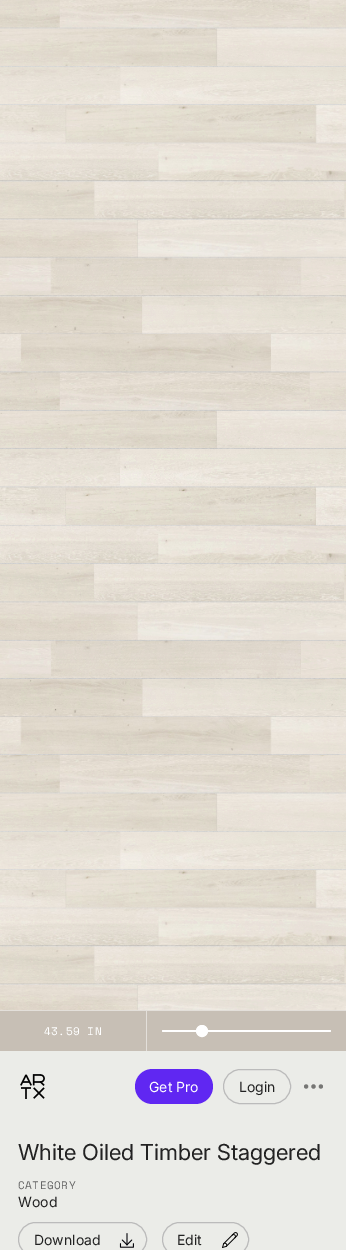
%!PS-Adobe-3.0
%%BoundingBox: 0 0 346 1250
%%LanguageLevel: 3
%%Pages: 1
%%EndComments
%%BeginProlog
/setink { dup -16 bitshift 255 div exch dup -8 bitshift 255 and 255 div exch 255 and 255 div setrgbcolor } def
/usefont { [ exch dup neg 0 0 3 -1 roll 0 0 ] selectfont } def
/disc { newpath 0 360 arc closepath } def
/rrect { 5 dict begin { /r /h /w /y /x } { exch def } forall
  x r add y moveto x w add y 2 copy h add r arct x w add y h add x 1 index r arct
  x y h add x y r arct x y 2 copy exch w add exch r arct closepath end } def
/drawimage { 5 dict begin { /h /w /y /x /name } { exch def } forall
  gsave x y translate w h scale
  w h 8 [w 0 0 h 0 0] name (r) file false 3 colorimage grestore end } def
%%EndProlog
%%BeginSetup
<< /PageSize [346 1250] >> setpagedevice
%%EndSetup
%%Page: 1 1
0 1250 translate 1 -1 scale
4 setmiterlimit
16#FFFFFF setink
0 0 346 1250 rectfill
(img1.raw) 0 0 346 1010 drawimage
(img2.raw) 0 334 346 383 drawimage
16#C7BFB5 setink
0 1011 346 40 rectfill
16#E3DFDA setink
0 1010 346 1 rectfill
/SpaceMono-Regular 11 usefont
16#FFFFFF setink
44 1035 moveto 0.5 0 (43.59 IN) ashow
16#E3DFDA setink
146 1011 1 40 rectfill
16#FFFFFF setink
162 1030 169 2 1 rrect fill
202 1031 5.5 disc gsave fill grestore
stroke
16#EBECE8 setink
0 1051 346 199 rectfill
(img3.raw) 20 1074 25 25 drawimage
16#6027F2 setink
135 1069 78 35 17.5 rrect fill
/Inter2-Regular 14 usefont
16#FFFFFF setink
149 1092 moveto (Get Pro) show
16#BBBBBB setink
223.5 1069.5 67 34 17 rrect stroke
16#222222 setink
239 1092 moveto (Login) show
16#767674 setink
306.1 1086.5 2.1 disc fill
313.5 1086.5 2.1 disc fill
320.9 1086.5 2.1 disc fill
/Inter-Regular 22 usefont
16#222222 setink
18 1160 moveto (White Oiled Timber Staggered) show
/SpaceMono-Regular 11 usefont
16#666666 setink
18 1189 moveto 0.5 0 (CATEGORY) ashow
/Inter2-Regular 14 usefont
16#222222 setink
18 1207 moveto (Wood) show
(img4.raw) 119 1233 15 15 drawimage
16#BBBBBB setink
18.5 1222.5 128 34 17 rrect stroke
16#222222 setink
34 1245 moveto (Download) show
(img5.raw) 222 1232 16 16 drawimage
16#BBBBBB setink
162.5 1222.5 86 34 17 rrect stroke
16#222222 setink
177 1245 moveto (Edit) show
showpage
%%EOF
